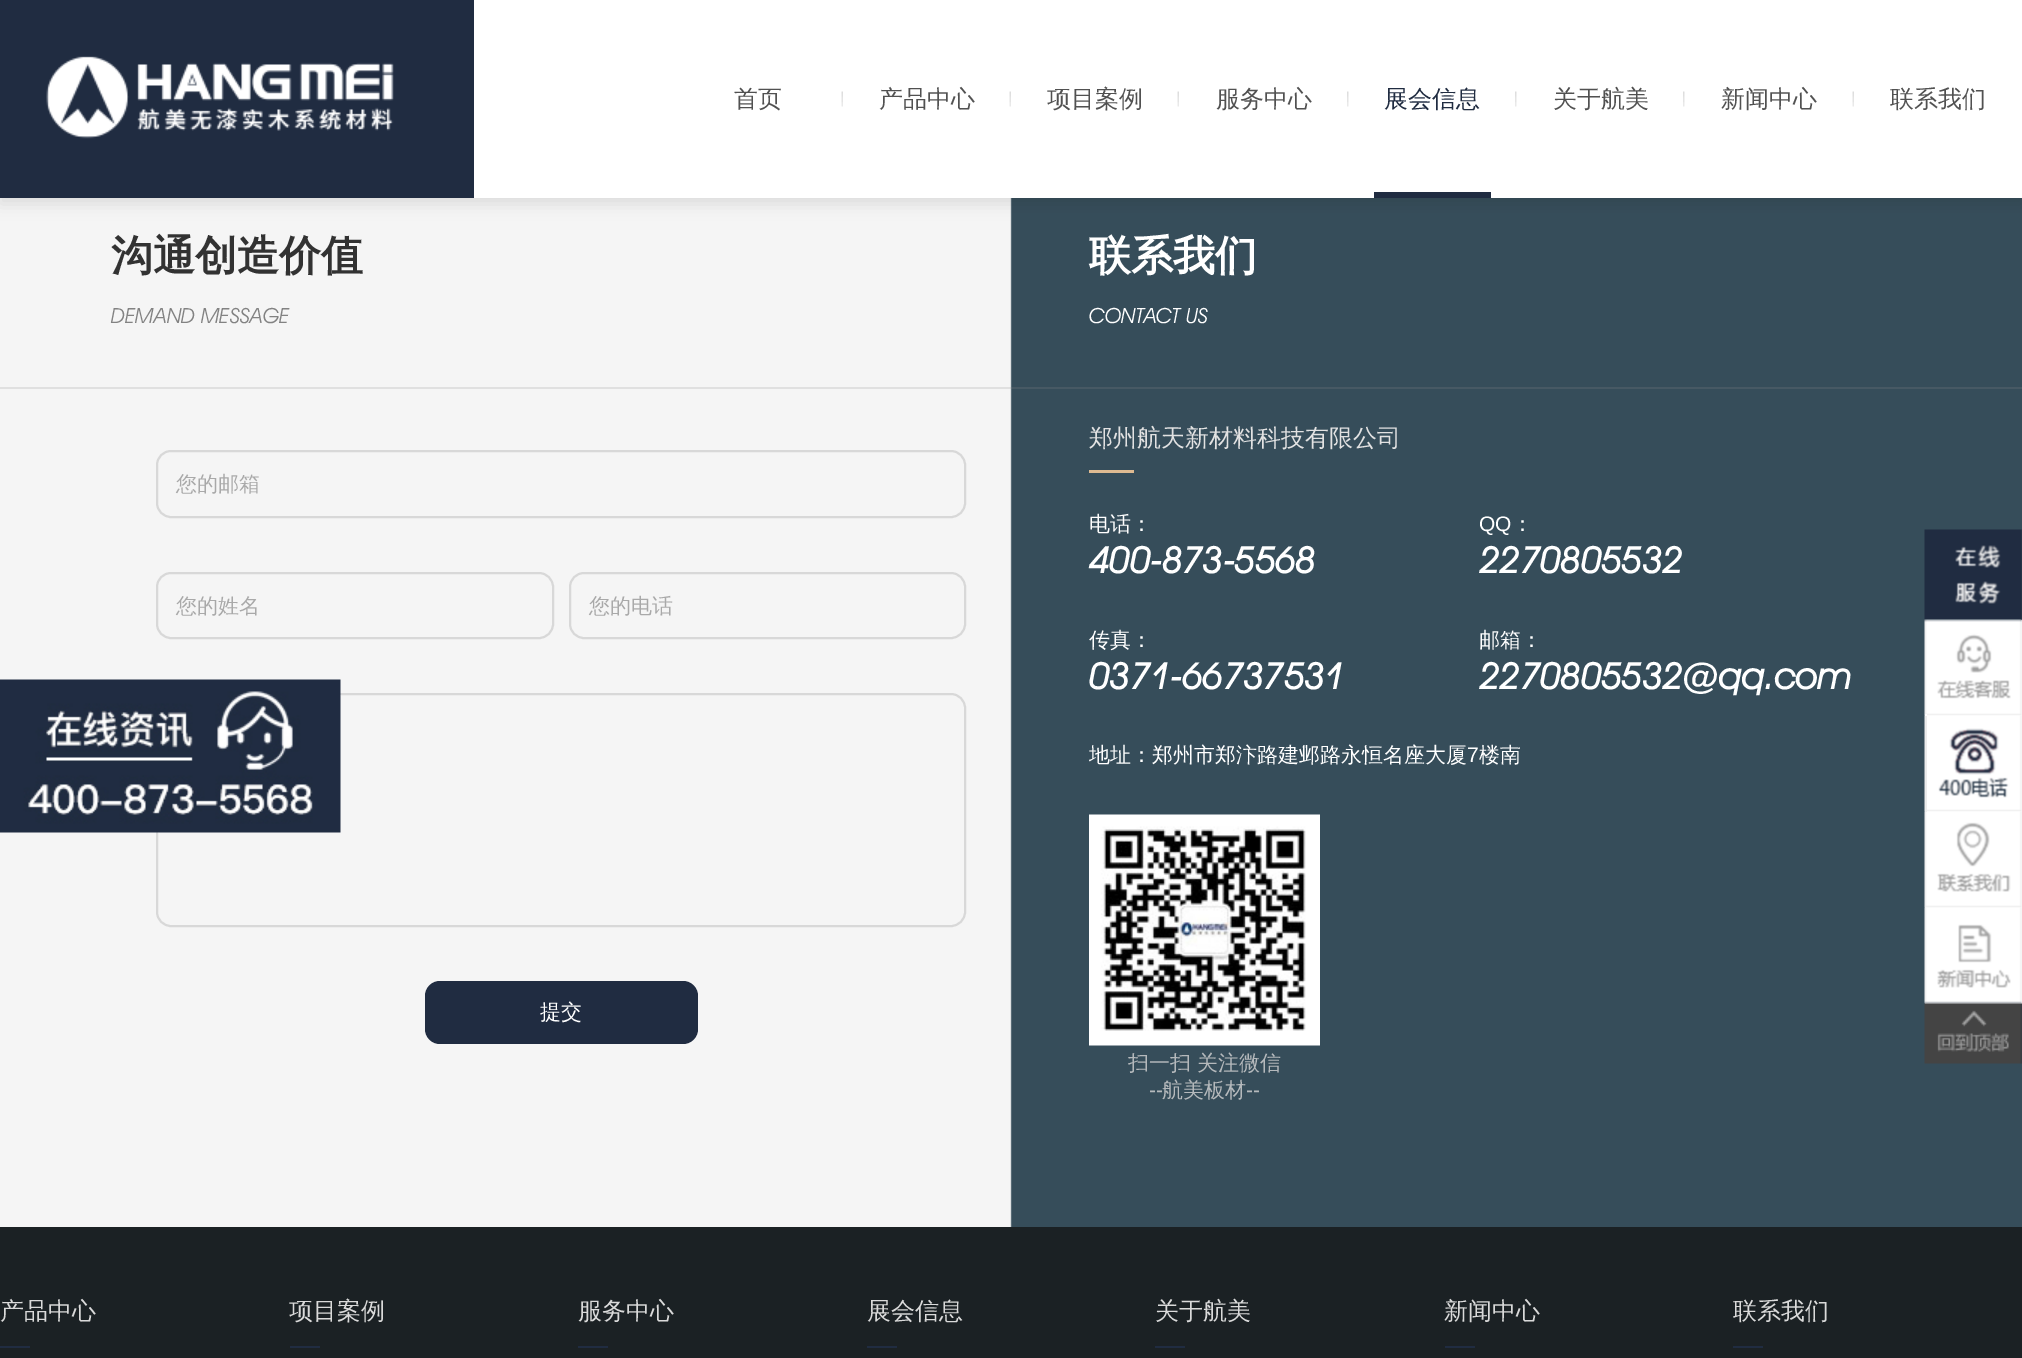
%!PS-Adobe-3.0
%%BoundingBox: 0 0 2022 1358
%%LanguageLevel: 3
%%Pages: 1
%%EndComments
%%BeginProlog
/setink { dup -16 bitshift 255 div exch dup -8 bitshift 255 and 255 div exch 255 and 255 div setrgbcolor } def
/usefont { [ exch dup neg 0 0 3 -1 roll 0 0 ] selectfont } def
/setalpha { dup .setfillconstantalpha .setstrokeconstantalpha } def
/rrect { 5 dict begin { /r /h /w /y /x } { exch def } forall
  x r add y moveto x w add y 2 copy h add r arct x w add y h add x 1 index r arct
  x y h add x y r arct x y 2 copy exch w add exch r arct closepath end } def
/softshadow { 12 dict begin { /a /b /q /h /w /y /x } { exch def } forall gsave /was 0 def
  9 -2 -9 { dup b mul 4 div /e exch def 1 sub .425 mul 2.718 exch exp 1 add a .99 .min exch div /now exch def
    1 1 now sub 1 was sub div sub setalpha /was now def
    w h .min e 2 mul add 0 gt { x e sub y e sub w e 2 mul add h e 2 mul add
      q e add b .6 mul add w h .min 2 div e add .min 0 .max rrect fill } if } for grestore end } def
/drawimage { 5 dict begin { /h /w /y /x /name } { exch def } forall
  gsave x y translate w h scale
  w h 8 [w 0 0 h 0 0] name (r) file false 3 colorimage grestore end } def
%%EndProlog
%%BeginSetup
<< /PageSize [2022 1358] /PageUsesTransparency true >> setpagedevice
%%EndSetup
%%Page: 1 1
0 .pushpdf14devicefilter
0 1358 translate 1 -1 scale
4 setmiterlimit
16#FFFFFF setink
0 0 2022 1358 rectfill
(img4.raw) 0 198 2022 1029 drawimage
16#000000 setink
0 6 2022 198 0 7.5 0.1 softshadow
16#FFFFFF setink
474 0 1548 198 rectfill
(img1.raw) 0 0 474 198 drawimage
(img2.raw) 841 91 2 16 drawimage
/WenQuanYiZenHei-Medium 24 usefont
16#515151 setink
734 107 moveto (首页) show
(img2.raw) 1009 91 2 16 drawimage
879 107 moveto (产品中心) show
(img2.raw) 1177 91 2 16 drawimage
1047 107 moveto (项目案例) show
(img3.raw) 1347 91 2 16 drawimage
1216 107 moveto (服务中心) show
(img3.raw) 1515 91 2 16 drawimage
16#202C41 setink
1384 107 moveto (展会信息) show
1374 192 117 6 rectfill
(img3.raw) 1683 91 2 16 drawimage
16#515151 setink
1553 107 moveto (关于航美) show
(img2.raw) 1852 91 2 16 drawimage
1721 107 moveto (新闻中心) show
1890 107 moveto (联系我们) show
/WenQuanYiZenHei-Bold 42 usefont
16#323232 setink
111 270 moveto (沟通创造价值) show
/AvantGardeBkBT-Italic 21 usefont
16#828282 setink
111 323 moveto (DEMAND MESSAGE) show
16#D8D8D8 setink
2 setlinewidth
157 451 808 66 14 rrect stroke
/WenQuanYiZenHei-Medium 21 usefont
16#A9A9A9 setink
176 491 moveto (您的邮箱) show
16#D8D8D8 setink
157 573 396 65 14 rrect stroke
16#A9A9A9 setink
176 613 moveto (您的姓名) show
16#D8D8D8 setink
570 573 395 65 14 rrect stroke
16#A9A9A9 setink
589 613 moveto (您的电话) show
16#D8D8D8 setink
157 694 808 232 14 rrect stroke
16#202C41 setink
425 981 273 63 15 rrect fill
16#FFFFFF setink
540 1019 moveto (提交) show
/WenQuanYiZenHei-Bold 42 usefont
1089 270 moveto (联系我们) show
/AvantGardeBkBT-Italic 21 usefont
1089 323 moveto (CONTACT US) show
/WenQuanYiZenHei-Medium 24 usefont
16#E2E2E2 setink
1089 446 moveto (郑州航天新材料科技有限公司) show
16#DEBA91 setink
1089 470 45 3 rectfill
/WenQuanYiZenHei-Medium 21 usefont
16#FFFFFF setink
1089 531 moveto (电话：) show
/AvantGardeBkBT-BoldItalic 36 usefont
1089 573 moveto (400-873-5568) show
/LiberationSans-Regular 21 usefont
1479 531 moveto (QQ) show
/WenQuanYiZenHei-Medium 21 usefont
1512 531 moveto (：) show
/AvantGardeBkBT-BoldItalic 36 usefont
1479 573 moveto (2270805532) show
/WenQuanYiZenHei-Medium 21 usefont
1089 647 moveto (传真：) show
/AvantGardeBkBT-BoldItalic 36 usefont
1089 689 moveto (0371-66737531) show
/WenQuanYiZenHei-Medium 21 usefont
1479 647 moveto (邮箱：) show
/AvantGardeBkBT-BoldItalic 36 usefont
1479 689 moveto (2270805532@qq.com) show
/WenQuanYiZenHei-Medium 21 usefont
1089 762 moveto (地址：郑州市郑汴路建邺路永恒名座大厦) show
/LiberationSans-Regular 21 usefont
1467 762 moveto (7) show
/WenQuanYiZenHei-Medium 21 usefont
1479 762 moveto (楼南) show
(img5.raw) 1089 814 231 232 drawimage
16#B5B9BC setink
1128 1070 moveto (扫一扫 关注微信) show
/LiberationSans-Regular 21 usefont
1149 1097 moveto (--) show
/WenQuanYiZenHei-Medium 21 usefont
1162 1097 moveto (航美板材) show
/LiberationSans-Regular 21 usefont
1246 1097 moveto (--) show
0.2 setalpha
16#8A8A8A setink
0 387 2022 2 rectfill
1 setalpha
16#1B2124 setink
0 1227 2022 131 rectfill
/WenQuanYiZenHei-Medium 24 usefont
16#DADADA setink
0 1319 moveto (产品中心) show
16#202C41 setink
0 1346 30 2 rectfill
16#DADADA setink
289 1319 moveto (项目案例) show
16#202C41 setink
290 1346 30 2 rectfill
16#DADADA setink
578 1319 moveto (服务中心) show
16#202C41 setink
578 1346 30 2 rectfill
16#DADADA setink
867 1319 moveto (展会信息) show
16#202C41 setink
867 1346 30 2 rectfill
16#DADADA setink
1155 1319 moveto (关于航美) show
16#202C41 setink
1155 1346 30 2 rectfill
16#DADADA setink
1444 1319 moveto (新闻中心) show
16#202C41 setink
1445 1346 30 2 rectfill
16#DADADA setink
1733 1319 moveto (联系我们) show
16#202C41 setink
1733 1346 30 2 rectfill
(img6.raw) 1924 529 98 91 drawimage
16#FFFFFF setink
1925 620 97 96 rectfill
(img7.raw) 1924 619 98 97 drawimage
1927 716 95 96 rectfill
(img8.raw) 1924 715 98 97 drawimage
1925 812 97 192 rectfill
(img9.raw) 1924 811 98 97 drawimage
1926.5 714 moveto 1927 714 lineto 1927 812 lineto 1926.5 812 lineto 1925.5 812 1925 811.5 1925 810.5 curveto 1925 715.5 lineto 1925 714.5 1925.5 714 1926.5 714 curveto closepath fill
16#ECECEC setink
1925 716 2 96 rectfill
(img10.raw) 1924 907 98 97 drawimage
(img11.raw) 1924 1003 98 61 drawimage
(img12.raw) 0 679 341 154 drawimage
.poppdf14devicefilter showpage
%%EOF
